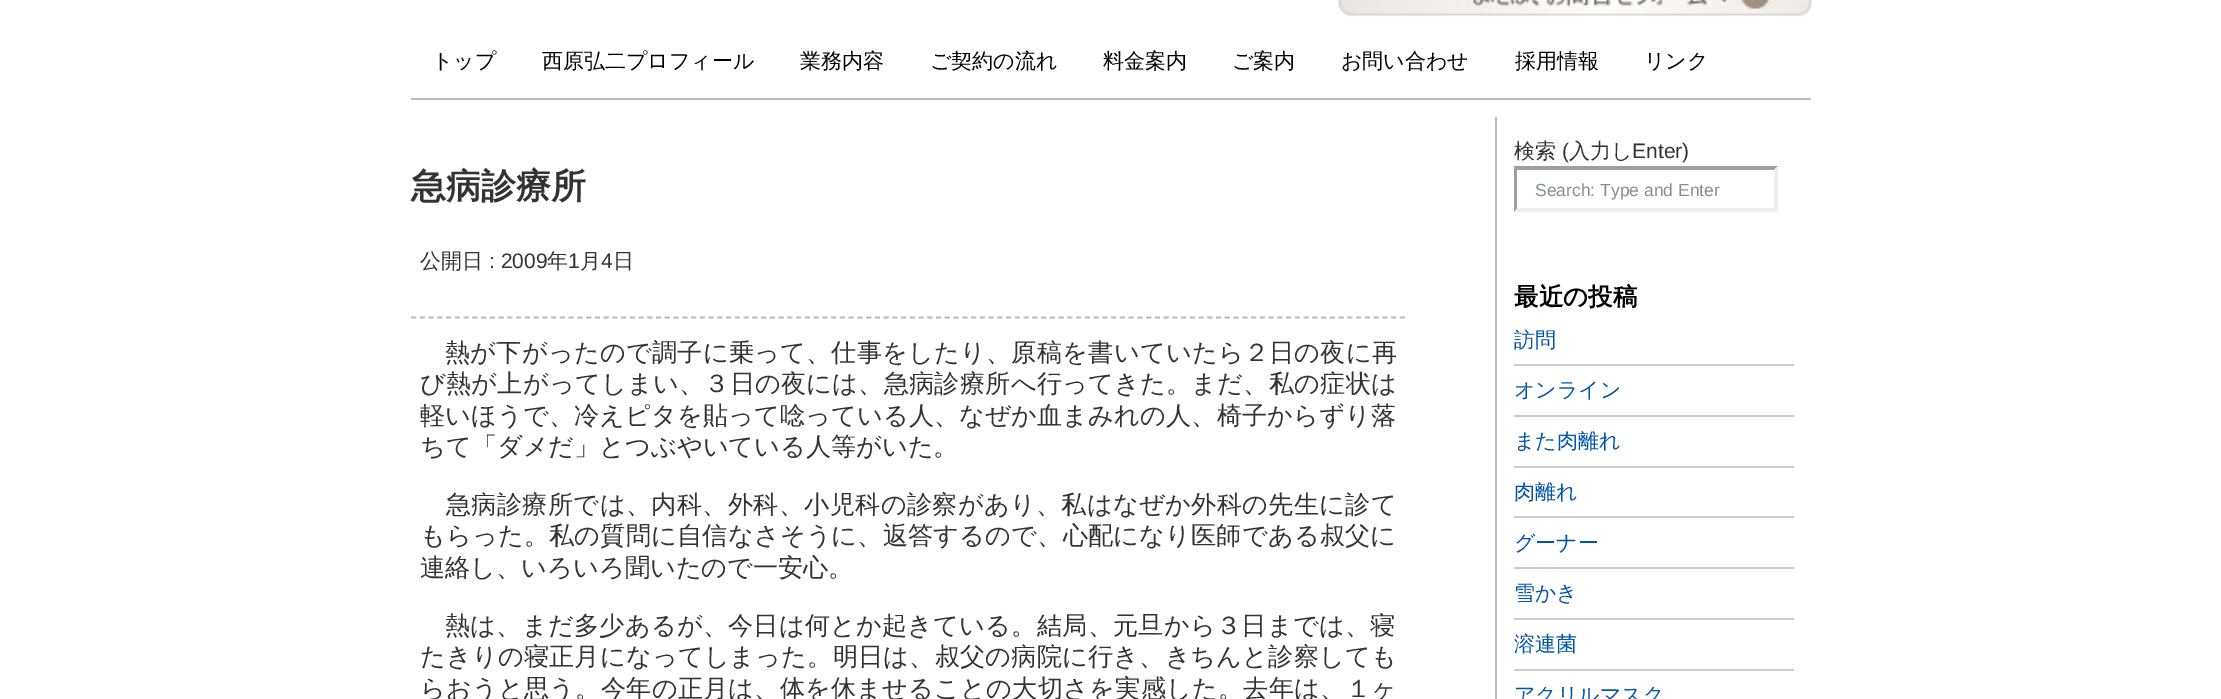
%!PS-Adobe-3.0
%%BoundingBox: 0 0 2221 699
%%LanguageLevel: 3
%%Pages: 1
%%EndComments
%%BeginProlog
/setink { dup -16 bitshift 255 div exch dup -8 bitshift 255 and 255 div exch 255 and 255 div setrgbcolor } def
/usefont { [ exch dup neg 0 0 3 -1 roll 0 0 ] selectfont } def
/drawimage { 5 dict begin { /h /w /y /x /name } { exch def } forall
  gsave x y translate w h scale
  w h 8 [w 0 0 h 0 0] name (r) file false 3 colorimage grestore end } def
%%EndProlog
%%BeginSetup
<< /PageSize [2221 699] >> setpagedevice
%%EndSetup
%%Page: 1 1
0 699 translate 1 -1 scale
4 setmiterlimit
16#FFFFFF setink
0 0 2221 699 rectfill
16#BBBBBB setink
411 98 1400 2 rectfill
(img1.raw) 1338 0 474 16 drawimage
/WenQuanYiZenHei-Medium 21 usefont
16#000000 setink
[
    [(トップ) 432 68]
    [(西原弘二プロフィール) 542 68]
    [(業務内容) 800 68]
    [(ご契約の流れ) 930 68]
    [(料金案内) 1103 68]
    [(ご案内) 1232 68]
    [(お問い合わせ) 1341 68]
    [(採用情報) 1515 68]
    [(リンク) 1644 68]
] { aload pop moveto show } forall
/WenQuanYiZenHei-Bold 35 usefont
16#333333 setink
411 198 moveto (急病診療所) show
/WenQuanYiZenHei-Medium 21 usefont
420 268 moveto (公開日) show
/LiberationSans-Regular 21 usefont
489 268 moveto (: 2009) show
/WenQuanYiZenHei-Medium 21 usefont
547 268 moveto (年) show
/LiberationSans-Regular 21 usefont
568 268 moveto (1) show
/WenQuanYiZenHei-Medium 21 usefont
580 268 moveto (月) show
/LiberationSans-Regular 21 usefont
601 268 moveto (4) show
/WenQuanYiZenHei-Medium 21 usefont
613 268 moveto (日) show
16#BBBBBB setink
1.8 setlinewidth
[5.25 3.5] 0 setdash
411 317.5 moveto 1405 317.5 lineto stroke
/WenQuanYiZenHei-Medium 25.2 usefont
16#333333 setink
445 361 moveto 0.2 0 (熱が下がったので調子に乗って、仕事をしたり、原稿を書いていたら２日の夜に再) ashow
420 392 moveto 0.2 0 (び熱が上がってしまい、３日の夜には、急病診療所へ行ってきた。まだ、私の症状は) ashow
420 424 moveto 0.1 0 (軽いほうで、冷えピタを貼って唸っている人、なぜか血まみれの人、椅子からずり落) ashow
420 455 moveto (ちて「ダメだ」とつぶやいている人等がいた。) show
446 513 moveto 0.3 0 (急病診療所では、内科、外科、小児科の診察があり、私はなぜか外科の先生に診て) ashow
420 544 moveto 0.15 0 (もらった。私の質問に自信なさそうに、返答するので、心配になり医師である叔父に) ashow
420 576 moveto (連絡し、いろいろ聞いたので一安心。) show
445 634 moveto 0.2 0 (熱は、まだ多少あるが、今日は何とか起きている。結局、元旦から３日までは、寝) ashow
420 665 moveto 0.15 0 (たきりの寝正月になってしまった。明日は、叔父の病院に行き、きちんと診察しても) ashow
420 697 moveto 0.2 0 (らおうと思う。今年の正月は、体を休ませることの大切さを実感した。去年は、１ヶ) ashow
16#BBBBBB setink
1495 117 2 582 rectfill
/WenQuanYiZenHei-Medium 21 usefont
16#333333 setink
1514 158 moveto (検索) show
/LiberationSans-Regular 21 usefont
1562 158 moveto (\() show
/WenQuanYiZenHei-Medium 21 usefont
1569 158 moveto (入力し) show
/LiberationSans-Regular 21 usefont
1632 158 moveto (Enter\)) show
16#9F9F9F setink
1514 166 moveto 1778 166 lineto 1774 170 lineto 1517 170 lineto closepath fill
16#EFEFEF setink
1778 166 moveto 1778 212 lineto 1774 208 lineto 1774 170 lineto closepath fill
1778 212 moveto 1514 212 lineto 1517 208 lineto 1774 208 lineto closepath fill
16#9F9F9F setink
1514 212 moveto 1514 166 lineto 1517 170 lineto 1517 208 lineto closepath fill
/LiberationSans-Regular 17.5 usefont
16#878C8D setink
1535 196 moveto (Search: Type and Enter) show
/WenQuanYiZenHei-Bold 24.5 usefont
16#000000 setink
1514 305 moveto (最近の投稿) show
16#CCCCCC setink
1514 364 280 2 rectfill
/WenQuanYiZenHei-Medium 21 usefont
16#0055AA setink
1514 347 moveto (訪問) show
16#CCCCCC setink
1514 415 280 2 rectfill
16#0055AA setink
1514 397 moveto (オンライン) show
16#CCCCCC setink
1514 466 280 2 rectfill
16#0055AA setink
1514 448 moveto (また肉離れ) show
16#CCCCCC setink
1514 516 280 2 rectfill
16#0055AA setink
1514 499 moveto (肉離れ) show
16#CCCCCC setink
1514 567 280 2 rectfill
16#0055AA setink
1514 550 moveto (グーナー) show
16#CCCCCC setink
1514 618 280 2 rectfill
16#0055AA setink
1514 600 moveto (雪かき) show
16#CCCCCC setink
1514 669 280 2 rectfill
16#0055AA setink
1514 651 moveto (溶連菌) show
1514 702 moveto (アクリルマスク) show
showpage
%%EOF
